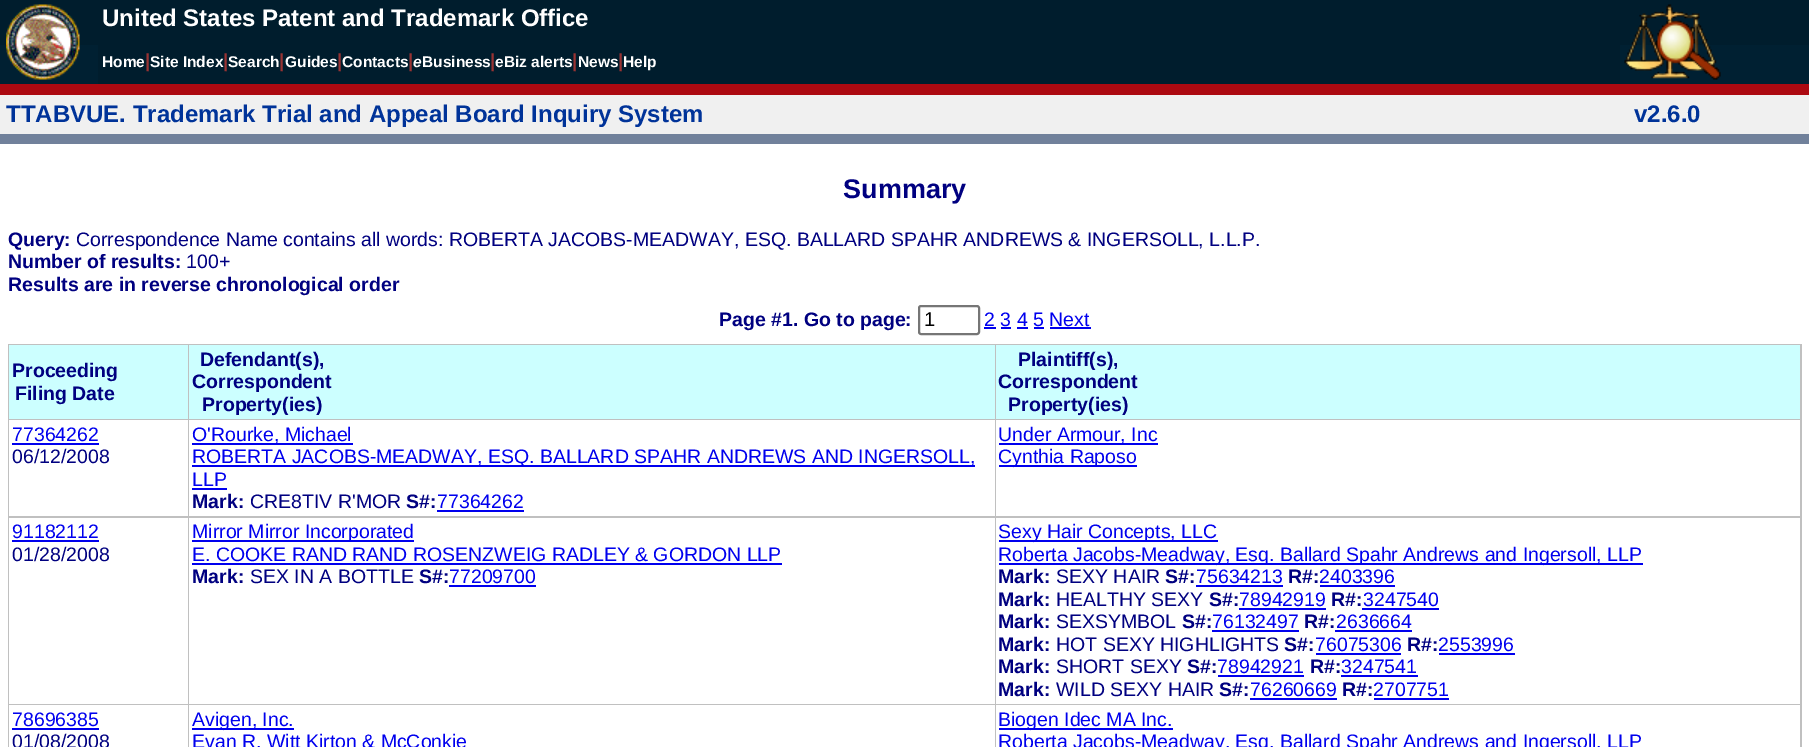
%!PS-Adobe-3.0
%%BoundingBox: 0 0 1809 747
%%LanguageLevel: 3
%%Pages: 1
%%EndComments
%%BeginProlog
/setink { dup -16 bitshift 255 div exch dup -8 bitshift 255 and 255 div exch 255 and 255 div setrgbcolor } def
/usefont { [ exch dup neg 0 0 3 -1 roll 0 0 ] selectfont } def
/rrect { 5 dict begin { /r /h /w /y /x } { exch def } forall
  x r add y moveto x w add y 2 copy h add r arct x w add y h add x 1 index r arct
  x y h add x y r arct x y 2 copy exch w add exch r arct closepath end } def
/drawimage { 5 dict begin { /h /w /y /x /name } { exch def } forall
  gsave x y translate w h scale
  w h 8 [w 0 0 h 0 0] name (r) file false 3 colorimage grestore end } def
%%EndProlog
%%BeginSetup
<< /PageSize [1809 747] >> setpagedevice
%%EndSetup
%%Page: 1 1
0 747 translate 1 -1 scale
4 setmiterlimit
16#FFFFFF setink
0 0 1809 747 rectfill
16#001D2D setink
0 0 1809 45 rectfill
16#002032 setink
0 45 1809 39 rectfill
(img1.raw) 6 4 74 76 drawimage
/LiberationSans-Bold 24 usefont
16#FFFFFF setink
102 26 moveto (United States Patent and Trademark Office) show
(img2.raw) 1624 4 97 76 drawimage
16#001D2D setink
98 45 1522 39 rectfill
/LiberationSans-Bold 15.5 usefont
16#FFFFFF setink
102 67 moveto (Home) show
/LiberationSans-Bold 19 usefont
16#993333 setink
145 67 moveto (|) show
/LiberationSans-Bold 15.5 usefont
16#FFFFFF setink
150 67 moveto (Site Index) show
/LiberationSans-Bold 19 usefont
16#993333 setink
223 67 moveto (|) show
/LiberationSans-Bold 15.5 usefont
16#FFFFFF setink
228 67 moveto (Search) show
/LiberationSans-Bold 19 usefont
16#993333 setink
279 67 moveto (|) show
/LiberationSans-Bold 15.5 usefont
16#FFFFFF setink
285 67 moveto (Guides) show
/LiberationSans-Bold 19 usefont
16#993333 setink
337 67 moveto (|) show
/LiberationSans-Bold 15.5 usefont
16#FFFFFF setink
342 67 moveto (Contacts) show
/LiberationSans-Bold 19 usefont
16#993333 setink
408 67 moveto (|) show
/LiberationSans-BoldItalic 15.5 usefont
16#FFFFFF setink
413 67 moveto (e) show
/LiberationSans-Bold 15.5 usefont
422 67 moveto (Business) show
/LiberationSans-Bold 19 usefont
16#993333 setink
490 67 moveto (|) show
/LiberationSans-Bold 15.5 usefont
16#FFFFFF setink
495 67 moveto (eBiz alerts) show
/LiberationSans-Bold 19 usefont
16#993333 setink
572 67 moveto (|) show
/LiberationSans-Bold 15.5 usefont
16#FFFFFF setink
578 67 moveto (News) show
/LiberationSans-Bold 19 usefont
16#993333 setink
618 67 moveto (|) show
/LiberationSans-Bold 15.5 usefont
16#FFFFFF setink
623 67 moveto (Help) show
16#AC0911 setink
0 84 1809 11 rectfill
16#F0F0F0 setink
0 95 1809 39 rectfill
/LiberationSans-Bold 24 usefont
16#003399 setink
6 122 moveto (TTABVUE. Trademark Trial and Appeal Board Inquiry System) show
1634 122 moveto (v2.6.0) show
16#71819B setink
0 134 1809 10 rectfill
/LiberationSans-Bold 27 usefont
16#000080 setink
843 198 moveto (Summary) show
/LiberationSans-Bold 19.5 usefont
8 246 moveto (Query:) show
/LiberationSans-Regular 19.5 usefont
76 246 moveto (Correspondence Name contains all words: ROBERTA JACOBS-MEADWAY, ESQ. BALLARD SPAHR ANDREWS & INGERSOLL, L.L.P.) show
/LiberationSans-Bold 19.5 usefont
8 268 moveto (Number of results:) show
/LiberationSans-Regular 19.5 usefont
186 268 moveto (100+) show
/LiberationSans-Bold 19.5 usefont
8 291 moveto (Results are in reverse chronological order) show
719 326 moveto (Page #1. Go to page:) show
16#767676 setink
2 setlinewidth
919 306 60 28 2 rrect stroke
/LiberationSans-Regular 20 usefont
16#000000 setink
924 326 moveto (1) show
/LiberationSans-Regular 19.5 usefont
16#0000EE setink
984 326 moveto (2 3 4 5 Next) show
[
    [984 327 12 2 16#0000EE]
    [1001 327 10 2 16#0000EE]
    [1017 327 11 2 16#0000EE]
    [1034 327 10 2 16#0000EE]
    [1050 327 41 2 16#0000EE]
    [8 344 1794 403 16#C0C0C0]
    [9 345 179 74 16#CCFFFF]
] { aload pop setink rectfill } forall
/LiberationSans-Bold 19.5 usefont
16#000080 setink
12 377 moveto (Proceeding) show
15 400 moveto (Filing Date) show
16#CCFFFF setink
189 345 806 74 rectfill
16#000080 setink
[
    [(Defendant\(s\),) 200 366]
    [(Correspondent) 192 388]
    [(Property\(ies\)) 202 411]
] { aload pop moveto show } forall
16#CCFFFF setink
996 345 804 74 rectfill
16#000080 setink
[
    [(Plaintiff\(s\),) 1018 366]
    [(Correspondent) 998 388]
    [(Property\(ies\)) 1008 411]
] { aload pop moveto show } forall
16#FFFFFF setink
9 420 179 96 rectfill
/LiberationSans-Regular 19.5 usefont
16#0000EE setink
12 441 moveto (77364262) show
12 443 87 2 rectfill
16#000080 setink
12 463 moveto (06/12/2008) show
16#FFFFFF setink
189 420 806 96 rectfill
16#0000EE setink
192 443 161 2 rectfill
192 441 moveto (O'Rourke, Michael) show
192 465 783 2 rectfill
192 463 moveto (ROBERTA JACOBS-MEADWAY, ESQ. BALLARD SPAHR ANDREWS AND INGERSOLL,) show
192 486 moveto (LLP) show
192 488 35 2 rectfill
/LiberationSans-Bold 19.5 usefont
16#000080 setink
192 508 moveto (Mark:) show
/LiberationSans-Regular 19.5 usefont
250 508 moveto (CRE8TIV R'MOR) show
/LiberationSans-Bold 19.5 usefont
406 508 moveto (S#:) show
/LiberationSans-Regular 19.5 usefont
16#0000EE setink
437 508 moveto (77364262) show
[
    [437 510 87 2 16#0000EE]
    [996 420 804 96 16#FFFFFF]
    [999 443 159 2 16#0000EE]
] { aload pop setink rectfill } forall
998 441 moveto (Under Armour, Inc) show
999 465 138 2 rectfill
998 463 moveto (Cynthia Raposo) show
16#FFFFFF setink
9 518 179 186 rectfill
16#0000EE setink
12 538 moveto (91182112) show
12 540 87 2 rectfill
16#000080 setink
12 561 moveto (01/28/2008) show
16#FFFFFF setink
189 518 806 186 rectfill
16#0000EE setink
192 540 222 2 rectfill
192 538 moveto (Mirror Mirror Incorporated) show
192 561 moveto (E. COOKE RAND RAND ROSENZWEIG RADLEY & GORDON LLP) show
192 563 590 2 rectfill
/LiberationSans-Bold 19.5 usefont
16#000080 setink
192 583 moveto (Mark:) show
/LiberationSans-Regular 19.5 usefont
250 583 moveto (SEX IN A BOTTLE) show
/LiberationSans-Bold 19.5 usefont
419 583 moveto (S#:) show
/LiberationSans-Regular 19.5 usefont
16#0000EE setink
449 583 moveto (77209700) show
[
    [449 585 87 2 16#0000EE]
    [996 518 804 186 16#FFFFFF]
    [999 540 219 2 16#0000EE]
] { aload pop setink rectfill } forall
998 538 moveto (Sexy Hair Concepts, LLC) show
999 563 644 2 rectfill
998 561 moveto (Roberta Jacobs-Meadway, Esq. Ballard Spahr Andrews and Ingersoll, LLP) show
/LiberationSans-Bold 19.5 usefont
16#000080 setink
998 583 moveto (Mark:) show
/LiberationSans-Regular 19.5 usefont
1056 583 moveto (SEXY HAIR) show
/LiberationSans-Bold 19.5 usefont
1165 583 moveto (S#:) show
/LiberationSans-Regular 19.5 usefont
16#0000EE setink
1196 583 moveto (75634213) show
1196 585 87 2 rectfill
/LiberationSans-Bold 19.5 usefont
16#000080 setink
1288 583 moveto (R#:) show
/LiberationSans-Regular 19.5 usefont
16#0000EE setink
1319 583 moveto (2403396) show
1320 585 75 2 rectfill
/LiberationSans-Bold 19.5 usefont
16#000080 setink
998 606 moveto (Mark:) show
/LiberationSans-Regular 19.5 usefont
1056 606 moveto (HEALTHY SEXY) show
/LiberationSans-Bold 19.5 usefont
1209 606 moveto (S#:) show
/LiberationSans-Regular 19.5 usefont
16#0000EE setink
1239 606 moveto (78942919) show
1239 608 87 2 rectfill
/LiberationSans-Bold 19.5 usefont
16#000080 setink
1331 606 moveto (R#:) show
/LiberationSans-Regular 19.5 usefont
16#0000EE setink
1363 606 moveto (3247540) show
1362 608 77 2 rectfill
/LiberationSans-Bold 19.5 usefont
16#000080 setink
998 628 moveto (Mark:) show
/LiberationSans-Regular 19.5 usefont
1056 628 moveto (SEXSYMBOL) show
/LiberationSans-Bold 19.5 usefont
1182 628 moveto (S#:) show
/LiberationSans-Regular 19.5 usefont
16#0000EE setink
1212 628 moveto (76132497) show
1212 630 87 2 rectfill
/LiberationSans-Bold 19.5 usefont
16#000080 setink
1304 628 moveto (R#:) show
/LiberationSans-Regular 19.5 usefont
16#0000EE setink
1336 628 moveto (2636664) show
1335 630 77 2 rectfill
/LiberationSans-Bold 19.5 usefont
16#000080 setink
998 651 moveto (Mark:) show
/LiberationSans-Regular 19.5 usefont
1056 651 moveto (HOT SEXY HIGHLIGHTS) show
/LiberationSans-Bold 19.5 usefont
1284 651 moveto (S#:) show
/LiberationSans-Regular 19.5 usefont
16#0000EE setink
1315 651 moveto (76075306) show
1316 653 85 2 rectfill
/LiberationSans-Bold 19.5 usefont
16#000080 setink
1407 651 moveto (R#:) show
/LiberationSans-Regular 19.5 usefont
16#0000EE setink
1438 651 moveto (2553996) show
1439 653 76 2 rectfill
/LiberationSans-Bold 19.5 usefont
16#000080 setink
998 673 moveto (Mark:) show
/LiberationSans-Regular 19.5 usefont
1056 673 moveto (SHORT SEXY) show
/LiberationSans-Bold 19.5 usefont
1187 673 moveto (S#:) show
/LiberationSans-Regular 19.5 usefont
16#0000EE setink
1217 673 moveto (78942921) show
1218 675 86 2 rectfill
/LiberationSans-Bold 19.5 usefont
16#000080 setink
1310 673 moveto (R#:) show
/LiberationSans-Regular 19.5 usefont
16#0000EE setink
1341 673 moveto (3247541) show
1341 675 77 2 rectfill
/LiberationSans-Bold 19.5 usefont
16#000080 setink
998 696 moveto (Mark:) show
/LiberationSans-Regular 19.5 usefont
1056 696 moveto (WILD SEXY HAIR) show
/LiberationSans-Bold 19.5 usefont
1219 696 moveto (S#:) show
/LiberationSans-Regular 19.5 usefont
16#0000EE setink
1250 696 moveto (76260669) show
1250 698 87 2 rectfill
/LiberationSans-Bold 19.5 usefont
16#000080 setink
1342 696 moveto (R#:) show
/LiberationSans-Regular 19.5 usefont
16#0000EE setink
1373 696 moveto (2707751) show
1374 698 75 2 rectfill
16#FFFFFF setink
9 705 179 42 rectfill
16#0000EE setink
12 726 moveto (78696385) show
12 728 87 2 rectfill
16#000080 setink
12 748 moveto (01/08/2008) show
16#FFFFFF setink
189 705 806 42 rectfill
16#0000EE setink
192 728 102 2 rectfill
192 726 moveto (Avigen, Inc.) show
192 748 moveto (Evan R. Witt Kirton & McConkie) show
16#FFFFFF setink
996 705 804 42 rectfill
16#0000EE setink
999 728 174 2 rectfill
998 726 moveto (Biogen Idec MA Inc.) show
998 748 moveto (Roberta Jacobs-Meadway, Esq. Ballard Spahr Andrews and Ingersoll, LLP) show
showpage
%%EOF
